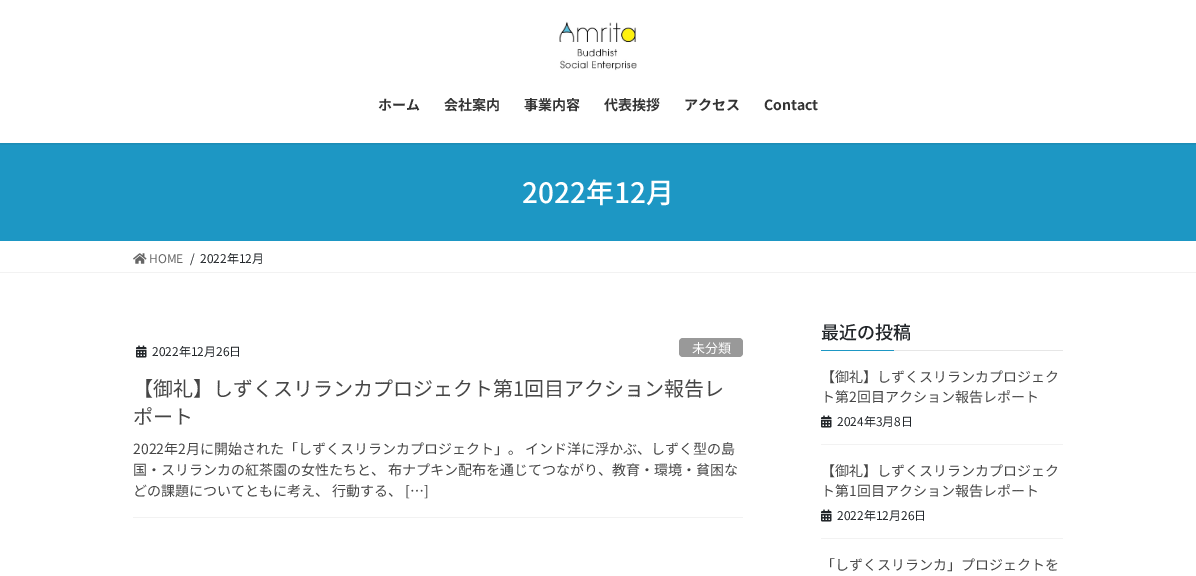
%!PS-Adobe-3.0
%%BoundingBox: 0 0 1196 576
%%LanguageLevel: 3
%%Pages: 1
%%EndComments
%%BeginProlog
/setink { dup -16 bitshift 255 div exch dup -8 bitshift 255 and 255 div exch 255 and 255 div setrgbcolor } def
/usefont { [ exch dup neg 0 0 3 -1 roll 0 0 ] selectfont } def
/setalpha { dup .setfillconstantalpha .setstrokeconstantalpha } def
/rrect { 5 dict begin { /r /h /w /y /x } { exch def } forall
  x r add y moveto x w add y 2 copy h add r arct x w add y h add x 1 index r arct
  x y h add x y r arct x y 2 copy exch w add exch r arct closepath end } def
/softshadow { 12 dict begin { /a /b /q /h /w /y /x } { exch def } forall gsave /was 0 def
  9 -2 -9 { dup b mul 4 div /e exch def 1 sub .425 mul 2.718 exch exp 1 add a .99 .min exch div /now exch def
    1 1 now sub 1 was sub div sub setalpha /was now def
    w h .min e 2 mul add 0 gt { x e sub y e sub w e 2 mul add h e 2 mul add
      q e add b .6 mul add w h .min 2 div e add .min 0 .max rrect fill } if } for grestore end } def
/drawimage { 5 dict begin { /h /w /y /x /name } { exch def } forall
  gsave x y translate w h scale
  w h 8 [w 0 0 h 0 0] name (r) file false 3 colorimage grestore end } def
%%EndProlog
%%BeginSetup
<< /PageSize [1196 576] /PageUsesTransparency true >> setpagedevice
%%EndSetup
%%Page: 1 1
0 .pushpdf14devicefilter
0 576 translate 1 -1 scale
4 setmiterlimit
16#FFFFFF setink
0 0 1196 576 rectfill
16#1D97C4 setink
0 143 1196 98 rectfill
gsave
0 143 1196 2 rectclip
16#000000 setink
0 1 1196 143 0 1.5 0.1 softshadow
grestore
(img1.raw) 559 21 78 50 drawimage
/NotoSansJP-Bold 14 usefont
16#333333 setink
[
    [(ホーム) 378 110]
    [(会社案内) 444 110]
    [(事業内容) 524 110]
    [(代表挨拶) 604 110]
    [(アクセス) 684 110]
    [(Contact) 764 110]
] { aload pop moveto show } forall
/NotoSansJP-Medium 28 usefont
16#FFFFFF setink
522 203 moveto (2022年12月) show
16#F2F2F2 setink
0 272 1196 1 rectfill
(img2.raw) 133 253 14 11 drawimage
/NotoSansJP-Regular 12 usefont
16#666666 setink
149 263 moveto (HOME) show
16#212529 setink
190 263 moveto (/) show
200 263 moveto (2022年12月) show
16#F2F2F2 setink
133 517 610 1 rectfill
(img3.raw) 136 345 11 13 drawimage
16#212529 setink
152 356 moveto (2022年12月26日) show
16#999999 setink
679 338 64 19 4 rrect fill
/NotoSansJP-Regular 13 usefont
16#FFFFFF setink
692 353 moveto (未分類) show
/NotoSansJP-Regular 20 usefont
16#464646 setink
133 396 moveto (【御礼】しずくスリランカプロジェクト第1回目アクション報告レ) show
133 424 moveto (ポート) show
/NotoSansJP-Regular 14 usefont
[
    [(2022年2月に開始された「しずくスリランカプロジェクト」。 インド洋に浮かぶ、しずく型の島) 133 454]
    [(国・スリランカの紅茶園の女性たちと、 布ナプキン配布を通じてつながり、教育・環境・貧困な) 133 475]
    [(どの課題についてともに考え、 行動する、 […]) 133 496]
] { aload pop moveto show } forall
16#E6E6E6 setink
894 350 169 1 rectfill
/NotoSansJP-Medium 18 usefont
16#212529 setink
821 339 moveto (最近の投稿) show
16#1D97C4 setink
821 350 73 1 rectfill
16#F2F2F2 setink
821 444 242 1 rectfill
/NotoSansJP-Regular 14 usefont
16#464646 setink
821 382 moveto (【御礼】しずくスリランカプロジェク) show
821 402 moveto (ト第2回目アクション報告レポート) show
(img3.raw) 821 415 11 13 drawimage
/NotoSansJP-Regular 12 usefont
16#212529 setink
837 426 moveto (2024年3月8日) show
16#F2F2F2 setink
821 538 242 1 rectfill
/NotoSansJP-Regular 14 usefont
16#464646 setink
821 476 moveto (【御礼】しずくスリランカプロジェク) show
821 496 moveto (ト第1回目アクション報告レポート) show
(img3.raw) 821 509 11 13 drawimage
/NotoSansJP-Regular 12 usefont
16#212529 setink
837 520 moveto (2022年12月26日) show
/NotoSansJP-Regular 14 usefont
16#464646 setink
821 570 moveto (「しずくスリランカ」プロジェクトを) show
.poppdf14devicefilter showpage
%%EOF
